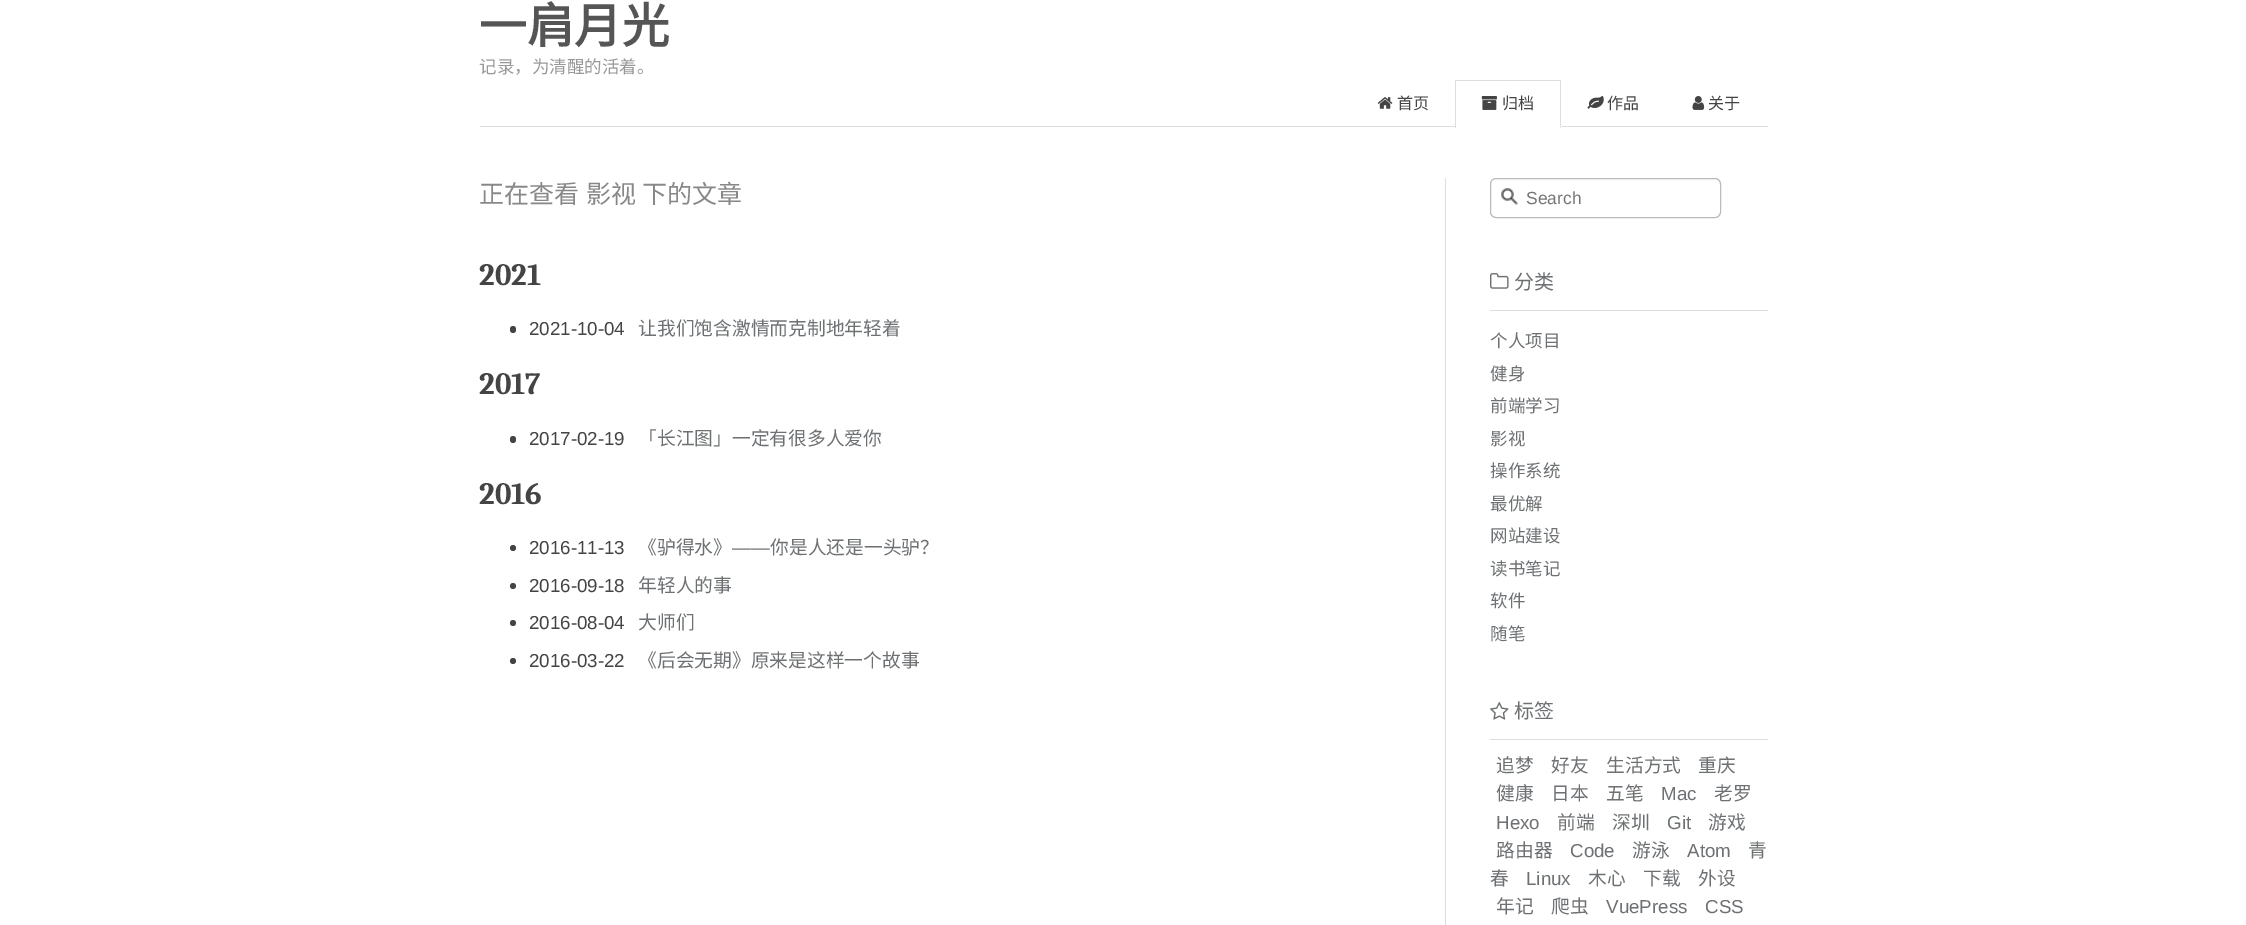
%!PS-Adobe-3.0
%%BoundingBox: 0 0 2246 925
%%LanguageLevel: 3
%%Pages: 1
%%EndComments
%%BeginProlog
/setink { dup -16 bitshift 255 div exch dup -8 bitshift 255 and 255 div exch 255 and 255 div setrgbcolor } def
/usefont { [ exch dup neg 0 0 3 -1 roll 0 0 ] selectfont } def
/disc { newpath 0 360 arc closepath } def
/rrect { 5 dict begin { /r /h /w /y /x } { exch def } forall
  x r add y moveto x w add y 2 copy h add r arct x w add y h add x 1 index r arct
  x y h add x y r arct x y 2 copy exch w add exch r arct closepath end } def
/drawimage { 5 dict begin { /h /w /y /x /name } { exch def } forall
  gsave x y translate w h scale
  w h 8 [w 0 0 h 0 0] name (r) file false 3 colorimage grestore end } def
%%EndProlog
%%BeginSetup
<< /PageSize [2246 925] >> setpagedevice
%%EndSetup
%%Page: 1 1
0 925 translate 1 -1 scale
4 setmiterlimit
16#FFFFFF setink
0 0 2246 925 rectfill
16#DDDDDD setink
480 126 1288 1 rectfill
/NotoSansCJKSC-Bold 47.5 usefont
16#555555 setink
479 43 moveto (一肩月光) show
/NotoSansCJKSC-Regular 17.5 usefont
16#999999 setink
479 73 moveto (记录，为清醒的活着。) show
(img1.raw) 1377 97 16 12 drawimage
/NotoSansCJKSC-Regular 16 usefont
16#444444 setink
1397 109 moveto (首页) show
[
    [1455 80 106 1 16#DDDDDD]
    [1560 80 1 48 16#DDDDDD]
    [1455 126 106 1 16#FFFFFF]
    [1455 80 1 48 16#DDDDDD]
] { aload pop setink rectfill } forall
(img2.raw) 1481 96 16 14 drawimage
16#444444 setink
1502 109 moveto (归档) show
(img3.raw) 1587 96 17 13 drawimage
1607 109 moveto (作品) show
(img4.raw) 1692 96 13 14 drawimage
1708 109 moveto (关于) show
/NotoSansCJKSC-Regular 25 usefont
16#888888 setink
479 203 moveto 1 0 32 (正在查看 影视 下的文章) widthshow
/Caladea-Bold 31 usefont
16#444444 setink
479 285 moveto (2021) show
510 326 6 7 3 rrect fill
/LiberationSans-Regular 18.75 usefont
529 335 moveto (2021-10-04) show
/NotoSansCJKSC-Regular 18.75 usefont
16#6E7173 setink
638 335 moveto (让我们饱含激情而克制地年轻着) show
/Caladea-Bold 31 usefont
16#444444 setink
479 394 moveto (2017) show
510 436 6 7 3 rrect fill
/LiberationSans-Regular 18.75 usefont
529 445 moveto (2017-02-19) show
/NotoSansCJKSC-Regular 18.75 usefont
16#6E7173 setink
638 445 moveto (「长江图」一定有很多人爱你) show
/Caladea-Bold 31 usefont
16#444444 setink
479 504 moveto (2016) show
513 548 3 disc fill
/LiberationSans-Regular 18.75 usefont
529 554 moveto (2016-11-13) show
/NotoSansCJKSC-Regular 18.75 usefont
16#6E7173 setink
638 554 moveto (《驴得水》) show
/LiberationSans-Regular 18.75 usefont
732 554 moveto (——) show
/NotoSansCJKSC-Regular 18.75 usefont
770 554 moveto (你是人还是一头驴？) show
16#444444 setink
513 586 3 disc fill
/LiberationSans-Regular 18.75 usefont
529 592 moveto (2016-09-18) show
/NotoSansCJKSC-Regular 18.75 usefont
16#6E7173 setink
638 592 moveto (年轻人的事) show
16#444444 setink
513 623 3 disc fill
/LiberationSans-Regular 18.75 usefont
529 629 moveto (2016-08-04) show
/NotoSansCJKSC-Regular 18.75 usefont
16#6E7173 setink
638 629 moveto (大师们) show
16#444444 setink
513 661 3 disc fill
/LiberationSans-Regular 18.75 usefont
529 667 moveto (2016-03-22) show
/NotoSansCJKSC-Regular 18.75 usefont
16#6E7173 setink
638 667 moveto (《后会无期》原来是这样一个故事) show
16#DDDDDD setink
1445 178 1 747 rectfill
(img5.raw) 1501 188 17 17 drawimage
16#BBBBBB setink
1490.5 178.5 230 39 5.5 rrect stroke
/LiberationSans-Regular 17.5 usefont
16#757575 setink
1526 204 moveto (Search) show
16#DDDDDD setink
1490 310 278 1 rectfill
(img6.raw) 1490 273 19 16 drawimage
/NotoSansCJKSC-Regular 20 usefont
16#6E7173 setink
1514 289 moveto (分类) show
/NotoSansCJKSC-Regular 17.5 usefont
[
    [(个人项目) 1490 347]
    [(健身) 1490 380]
    [(前端学习) 1490 412]
    [(影视) 1490 445]
    [(操作系统) 1490 477]
    [(最优解) 1490 510]
    [(网站建设) 1490 542]
    [(读书笔记) 1490 575]
    [(软件) 1490 607]
    [(随笔) 1490 640]
] { aload pop moveto show } forall
16#DDDDDD setink
1490 739 278 1 rectfill
(img7.raw) 1490 702 19 18 drawimage
/NotoSansCJKSC-Regular 20 usefont
16#6E7173 setink
1514 718 moveto (标签) show
/NotoSansCJKSC-Regular 18.75 usefont
[
    [(追梦) 1496 772]
    [(好友) 1551 772]
    [(生活方式) 1606 772]
    [(重庆) 1698 772]
    [(健康) 1496 800]
    [(日本) 1551 800]
    [(五笔) 1606 800]
] { aload pop moveto show } forall
/LiberationSans-Regular 18.75 usefont
1661 800 moveto (Mac) show
/NotoSansCJKSC-Regular 18.75 usefont
1714 800 moveto (老罗) show
/LiberationSans-Regular 18.75 usefont
1496 829 moveto (Hexo) show
/NotoSansCJKSC-Regular 18.75 usefont
1557 829 moveto (前端) show
1612 829 moveto (深圳) show
/LiberationSans-Regular 18.75 usefont
1667 829 moveto (Git) show
/NotoSansCJKSC-Regular 18.75 usefont
1708 829 moveto (游戏) show
1496 857 moveto (路由器) show
/LiberationSans-Regular 18.75 usefont
1570 857 moveto (Code) show
/NotoSansCJKSC-Regular 18.75 usefont
1632 857 moveto (游泳) show
/LiberationSans-Regular 18.75 usefont
1687 857 moveto (Atom) show
/NotoSansCJKSC-Regular 18.75 usefont
1748 857 moveto (青) show
1490 885 moveto (春) show
/LiberationSans-Regular 18.75 usefont
1526 885 moveto (Linux) show
/NotoSansCJKSC-Regular 18.75 usefont
[
    [(木心) 1588 885]
    [(下载) 1643 885]
    [(外设) 1698 885]
    [(年记) 1496 913]
    [(爬虫) 1551 913]
] { aload pop moveto show } forall
/LiberationSans-Regular 18.75 usefont
1606 913 moveto (VuePress) show
1705 913 moveto (CSS) show
showpage
%%EOF
